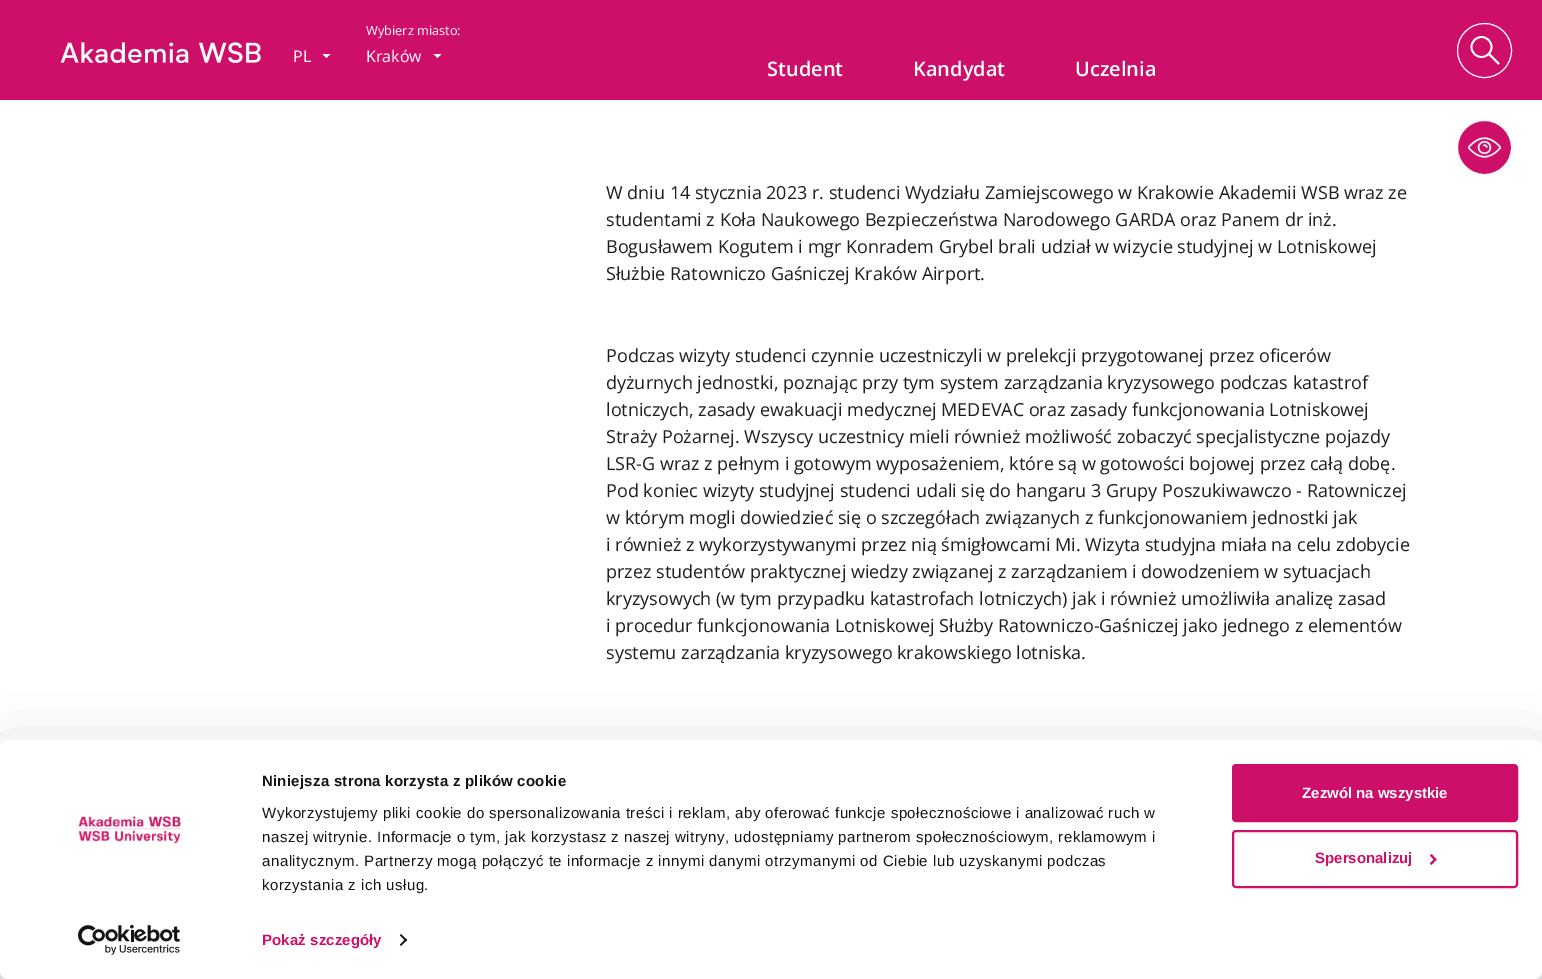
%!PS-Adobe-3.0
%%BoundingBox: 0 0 1542 979
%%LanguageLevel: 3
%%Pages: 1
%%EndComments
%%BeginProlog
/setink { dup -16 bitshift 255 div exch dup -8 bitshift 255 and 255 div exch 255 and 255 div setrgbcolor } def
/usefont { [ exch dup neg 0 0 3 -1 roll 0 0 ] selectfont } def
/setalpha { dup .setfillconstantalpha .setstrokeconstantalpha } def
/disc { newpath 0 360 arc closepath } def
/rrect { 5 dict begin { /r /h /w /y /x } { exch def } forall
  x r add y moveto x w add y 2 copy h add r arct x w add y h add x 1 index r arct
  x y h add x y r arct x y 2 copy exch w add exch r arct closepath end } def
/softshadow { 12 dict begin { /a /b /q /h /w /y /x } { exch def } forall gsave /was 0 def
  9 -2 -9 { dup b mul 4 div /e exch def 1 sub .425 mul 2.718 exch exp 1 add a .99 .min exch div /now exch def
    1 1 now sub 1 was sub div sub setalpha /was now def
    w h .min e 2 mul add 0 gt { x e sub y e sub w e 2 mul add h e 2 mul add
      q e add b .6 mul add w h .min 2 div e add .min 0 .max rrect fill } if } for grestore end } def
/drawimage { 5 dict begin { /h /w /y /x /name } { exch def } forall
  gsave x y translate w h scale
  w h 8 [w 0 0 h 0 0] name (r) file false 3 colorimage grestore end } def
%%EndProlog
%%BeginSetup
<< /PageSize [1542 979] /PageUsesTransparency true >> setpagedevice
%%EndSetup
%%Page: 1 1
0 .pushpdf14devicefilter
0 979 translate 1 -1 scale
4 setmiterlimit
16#FFFFFF setink
0 0 1542 979 rectfill
16#CE0F69 setink
0 0 1542 100 rectfill
(img1.raw) 60 42 201 21 drawimage
/OpenSans-Regular 16 usefont
16#FFFFFF setink
293 62 moveto (PL) show
330.5 54 moveto 326.5 58 lineto 322.5 54 lineto closepath eofill
/OpenSans-Regular 12.75 usefont
366 35 moveto (Wybierz miasto:) show
/OpenSans-Regular 16 usefont
366 62 moveto (Kraków) show
441.5 54 moveto 437.5 58 lineto 433.5 54 lineto closepath eofill
1484.5 50.5 27 disc stroke
1.8 setlinewidth
1489 54 moveto 1499 64 lineto stroke
1481.5 47 10 disc stroke
/OpenSans-SemiBold 20 usefont
[
    [(Student) 767 76]
    [(Kandydat) 913 76]
    [(Uczelnia) 1075 76]
] { aload pop moveto show } forall
16#CE0F69 setink
1484.5 147.5 27 disc gsave fill grestore
16#FFFFFF setink
1 setlinewidth
stroke
(img2.raw) 1468 137 33 21 drawimage
/OpenSans-Regular 18 usefont
16#1E1E1E setink
[
    [(W dniu 14 stycznia 2023 r. studenci Wydziału Zamiejscowego w Krakowie Akademii WSB wraz ze) 606 199]
    [(studentami z Koła Naukowego Bezpieczeństwa Narodowego GARDA oraz Panem dr inż.) 606 226]
    [(Bogusławem Kogutem i mgr Konradem Grybel brali udział w wizycie studyjnej w Lotniskowej) 606 253]
    [(Służbie Ratowniczo Gaśniczej Kraków Airport.) 606 280]
    [(Podczas wizyty studenci czynnie uczestniczyli w prelekcji przygotowanej przez oficerów) 606 362]
    [(dyżurnych jednostki, poznając przy tym system zarządzania kryzysowego podczas katastrof) 606 389]
    [(lotniczych, zasady ewakuacji medycznej MEDEVAC oraz zasady funkcjonowania Lotniskowej) 606 416]
    [(Straży Pożarnej. Wszyscy uczestnicy mieli również możliwość zobaczyć specjalistyczne pojazdy) 606 443]
    [(LSR-G wraz z pełnym i gotowym wyposażeniem, które są w gotowości bojowej przez całą dobę.) 606 470]
    [(Pod koniec wizyty studyjnej studenci udali się do hangaru 3 Grupy Poszukiwawczo - Ratowniczej) 606 497]
    [(w którym mogli dowiedzieć się o szczegółach związanych z funkcjonowaniem jednostki jak) 606 524]
    [(i również z wykorzystywanymi przez nią śmigłowcami Mi. Wizyta studyjna miała na celu zdobycie) 606 551]
    [(przez studentów praktycznej wiedzy związanej z zarządzaniem i dowodzeniem w sytuacjach) 606 578]
    [(kryzysowych \(w tym przypadku katastrofach lotniczych\) jak i również umożliwiła analizę zasad) 606 605]
    [(i procedur funkcjonowania Lotniskowej Służby Ratowniczo-Gaśniczej jako jednego z elementów) 606 632]
    [(systemu zarządzania kryzysowego krakowskiego lotniska.) 606 659]
] { aload pop moveto show } forall
16#000000 setink
0 770 1542 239 8 35 0.3 softshadow
16#FFFFFF setink
0 740 1542 239 8 rrect fill
(img3.raw) 78 816 103 28 drawimage
(img4.raw) 78 925 102 30 drawimage
/LiberationSans-Bold 15 usefont
16#141414 setink
262 786 moveto 0.25 0 (Niniejsza strona korzysta z plików cookie) ashow
/LiberationSans-Regular 15 usefont
262 818 moveto 0.5 0 (Wykorzystujemy pliki cookie do spersonalizowania treści i reklam, aby oferować funkcje społecznościowe i analizować ruch w) ashow
262 842 moveto 0.5 0 (naszej witrynie. Informacje o tym, jak korzystasz z naszej witryny, udostępniamy partnerom społecznościowym, reklamowym i) ashow
262 866 moveto 0.5 0 (analitycznym. Partnerzy mogą połączyć te informacje z innymi danymi otrzymanymi od Ciebie lub uzyskanymi podczas) ashow
262 890 moveto 0.5 0 (korzystania z ich usług.) ashow
/LiberationSans-Bold 15 usefont
16#CE0F69 setink
262 945 moveto 0.1 0 (Pokaż szczegóły) ashow
16#141414 setink
401 934 moveto 407 940 lineto 406 941.5 lineto 400 935.5 lineto closepath fill
406 938.5 moveto 407 940 lineto 401 946 lineto 400 944.5 lineto closepath fill
16#CE0F69 setink
1233 765 284 56 3 rrect gsave fill grestore
2 setlinewidth
stroke
16#FFFFFF setink
1302 798 moveto (Zezwól na wszystkie) show
16#CE0F69 setink
1233 831 284 56 3 rrect stroke
1315 863 moveto (Spersonalizuj) show
1431.5 854 moveto 1436.5 859.5 lineto 1435 861 lineto 1430 855.5 lineto closepath fill
1435 858 moveto 1436.5 859.5 lineto 1431.5 865 lineto 1430 863.5 lineto closepath fill
.poppdf14devicefilter showpage
%%EOF
